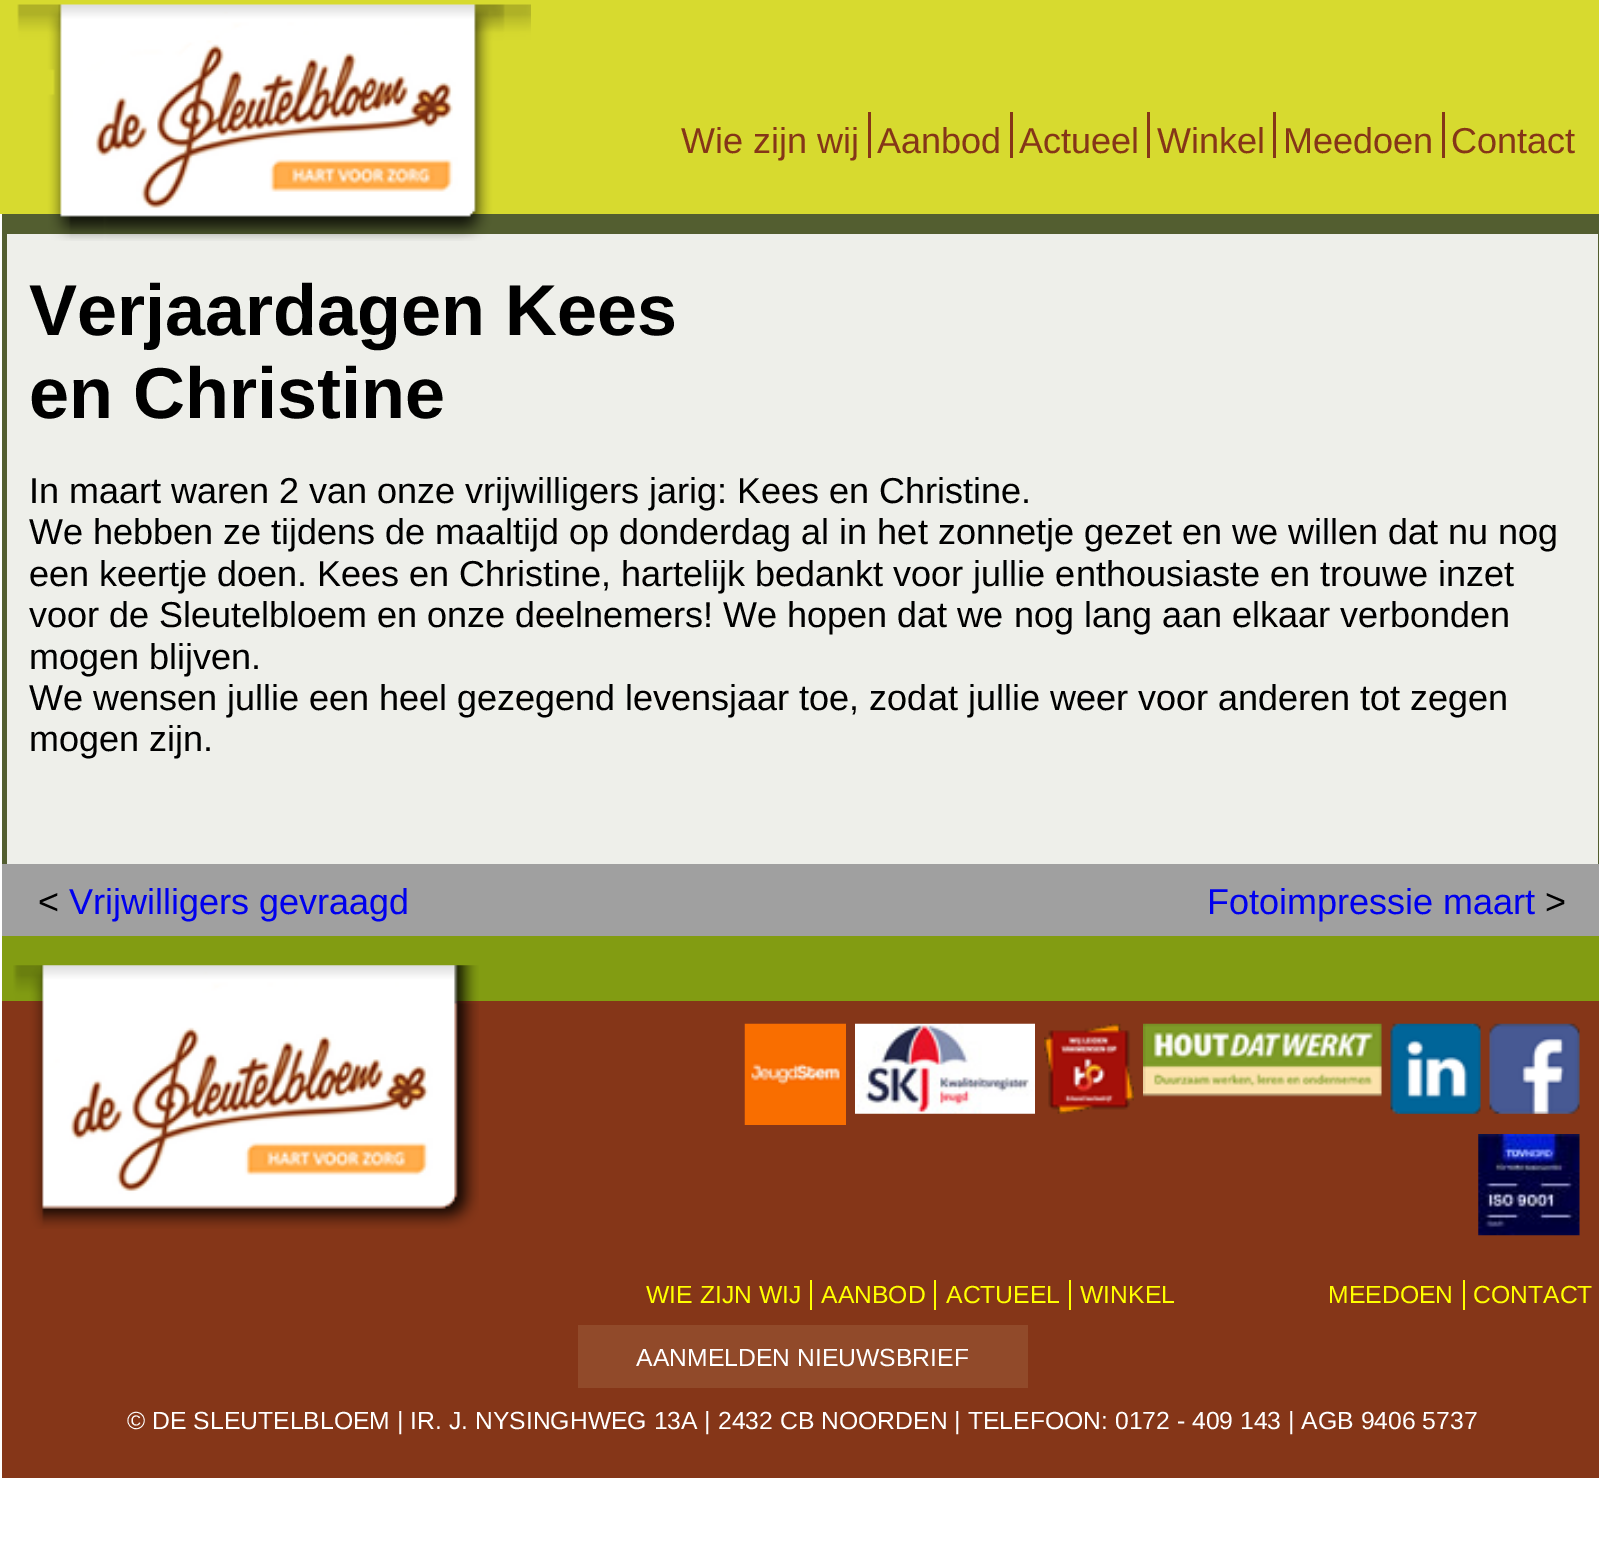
%!PS-Adobe-3.0
%%BoundingBox: 0 0 1599 1557
%%LanguageLevel: 3
%%Pages: 1
%%EndComments
%%BeginProlog
/setink { dup -16 bitshift 255 div exch dup -8 bitshift 255 and 255 div exch 255 and 255 div setrgbcolor } def
/usefont { [ exch dup neg 0 0 3 -1 roll 0 0 ] selectfont } def
/drawimage { 5 dict begin { /h /w /y /x /name } { exch def } forall
  gsave x y translate w h scale
  w h 8 [w 0 0 h 0 0] name (r) file false 3 colorimage grestore end } def
%%EndProlog
%%BeginSetup
<< /PageSize [1599 1557] >> setpagedevice
%%EndSetup
%%Page: 1 1
0 1557 translate 1 -1 scale
4 setmiterlimit
16#FFFFFF setink
0 0 1599 1557 rectfill
[
    [0 0 1599 214 16#D7DA2F]
    [2 214 1597 650 16#535E30]
    [7 234 1591 630 16#EEEFEA]
] { aload pop setink rectfill } forall
(img1.raw) 17 4 514 237 drawimage
/LiberationSans-Regular 36 usefont
16#853618 setink
681 153 moveto (Wie zijn wij) show
868 112 3 46 rectfill
877 153 moveto (Aanbod) show
1010 112 3 46 rectfill
1019 153 moveto (Actueel) show
1147 112 3 46 rectfill
1157 153 moveto (Winkel) show
1273 112 3 46 rectfill
1283 153 moveto (Meedoen) show
1442 112 3 46 rectfill
1451 153 moveto (Contact) show
16#829C12 setink
2 936 1597 65 rectfill
/LiberationSans-Bold 72 usefont
16#000000 setink
29 335 moveto (Verjaardagen Kees) show
29 418 moveto (en Christine) show
/LiberationSans-Regular 36 usefont
[
    [(In maart waren 2 van onze vrijwilligers jarig: Kees en Christine.) 29 503]
    [(We hebben ze tijdens de maaltijd op donderdag al in het zonnetje gezet en we willen dat nu nog) 29 544]
    [(een keertje doen. Kees en Christine, hartelijk bedankt voor jullie enthousiaste en trouwe inzet) 29 586]
    [(voor de Sleutelbloem en onze deelnemers! We hopen dat we nog lang aan elkaar verbonden) 29 627]
    [(mogen blijven.) 29 669]
    [(We wensen jullie een heel gezegend levensjaar toe, zodat jullie weer voor anderen tot zegen) 29 710]
    [(mogen zijn.) 29 751]
] { aload pop moveto show } forall
16#A0A0A0 setink
2 864 1597 72 rectfill
16#000000 setink
38 914 moveto (<) show
16#0000EE setink
69 914 moveto (Vrijwilligers gevraagd) show
1207 914 moveto (Fotoimpressie maart) show
16#000000 setink
1545 914 moveto (>) show
16#853618 setink
2 1001 1597 477 rectfill
(img2.raw) 13 965 466 264 drawimage
(img3.raw) 744 1023 102 102 drawimage
(img4.raw) 855 1023 180 91 drawimage
(img5.raw) 1044 1023 90 91 drawimage
(img6.raw) 1143 1023 239 74 drawimage
(img7.raw) 1390 1023 91 91 drawimage
(img8.raw) 1489 1023 91 91 drawimage
(img9.raw) 1478 1134 102 102 drawimage
16#FFFF00 setink
810 1280 2 30 rectfill
/LiberationSans-Regular 24.75 usefont
646 1303 moveto (WIE ZIJN WIJ) show
934 1280 2 30 rectfill
821 1303 moveto (AANBOD) show
1069 1280 2 30 rectfill
946 1303 moveto (ACTUEEL) show
1080 1303 moveto (WINKEL) show
1463 1280 2 30 rectfill
1328 1303 moveto (MEEDOEN) show
1473 1303 moveto (CONTACT) show
16#914A2A setink
578 1325 450 63 rectfill
16#FFFFFF setink
636 1366 moveto (AANMELDEN NIEUWSBRIEF) show
127 1429 moveto (© DE SLEUTELBLOEM | IR. J. NYSINGHWEG 13A | 2432 CB NOORDEN | TELEFOON: 0172 - 409 143 | AGB 9406 5737) show
showpage
%%EOF
